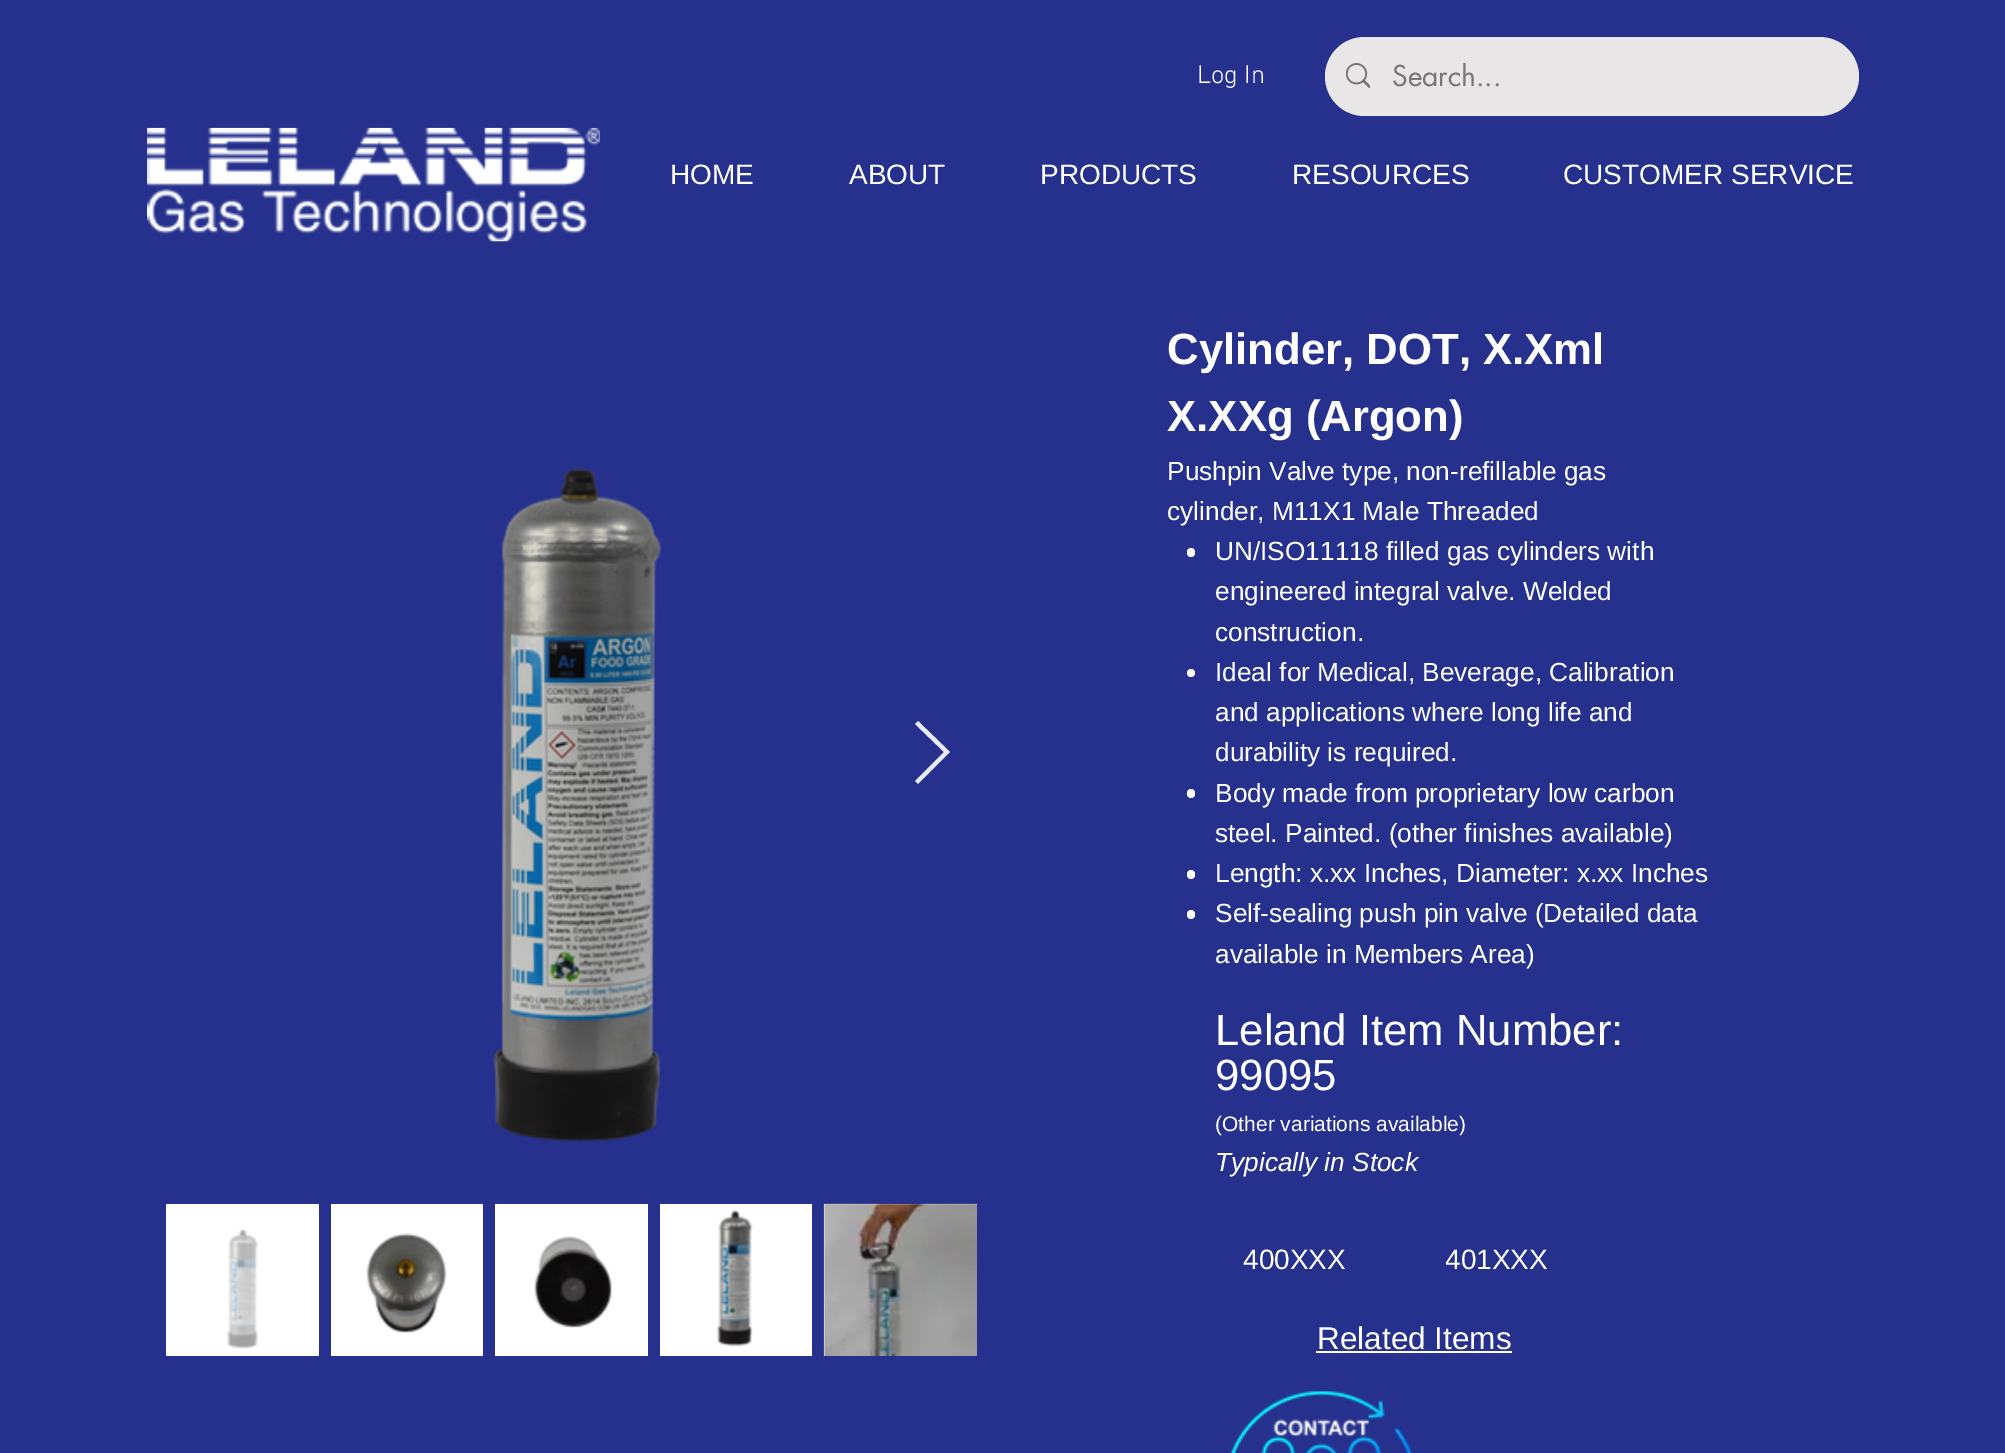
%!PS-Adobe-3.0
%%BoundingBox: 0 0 2005 1453
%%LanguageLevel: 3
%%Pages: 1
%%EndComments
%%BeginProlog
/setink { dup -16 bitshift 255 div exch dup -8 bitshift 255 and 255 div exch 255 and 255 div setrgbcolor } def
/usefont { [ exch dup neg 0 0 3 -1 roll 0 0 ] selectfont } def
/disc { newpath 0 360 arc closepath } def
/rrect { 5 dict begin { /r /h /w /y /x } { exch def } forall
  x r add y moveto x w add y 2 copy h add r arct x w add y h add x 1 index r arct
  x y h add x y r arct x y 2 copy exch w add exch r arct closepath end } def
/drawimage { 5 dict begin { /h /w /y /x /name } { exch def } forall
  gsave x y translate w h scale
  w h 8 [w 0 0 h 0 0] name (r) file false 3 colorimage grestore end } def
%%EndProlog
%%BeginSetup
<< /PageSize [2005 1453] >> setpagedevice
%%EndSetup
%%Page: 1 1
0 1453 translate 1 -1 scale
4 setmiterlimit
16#25318D setink
0 0 2005 1453 rectfill
/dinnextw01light-Light 26.25 usefont
16#FFFFFF setink
1197 83 moveto (Log In) show
16#E8E6E6 setink
1325 37 534 79 39.5 rrect fill
(img1.raw) 1346 63 24 26 drawimage
/futura-Regular 28 usefont
16#767676 setink
1392 86 moveto (Search...) show
(img2.raw) 147 127 454 115 drawimage
/LiberationSans-Regular 28 usefont
16#FFFFFF setink
[
    [(HOME) 670 184]
    [(ABOUT) 849 184]
    [(PRODUCTS) 1040 184]
    [(RESOURCES) 1292 184]
    [(CUSTOMER SERVICE) 1563 184]
] { aload pop moveto show } forall
(img3.raw) 493 467 169 676 drawimage
16#E9EAF4 setink
915 724 moveto 918 721 lineto 950 752 lineto 918 784 lineto 915 781 lineto 944 752 lineto closepath fill
16#FFFFFF setink
166 1204 153 152 rectfill
(img4.raw) 226 1228 33 121 drawimage
331 1204 152 152 rectfill
(img5.raw) 366 1233 81 100 drawimage
495 1204 153 152 rectfill
(img6.raw) 534 1236 78 92 drawimage
660 1204 152 152 rectfill
(img7.raw) 716 1210 38 137 drawimage
824 1204 153 152 rectfill
(img8.raw) 823 1203 154 153 drawimage
/LiberationSans-Bold 43.75 usefont
1167 364 moveto (Cylinder, DOT, X.Xml) show
1167 431 moveto (X.XXg \(Argon\)) show
/LiberationSans-Regular 26.25 usefont
1167 480 moveto (Pushpin Valve type, non-refillable gas) show
1167 520 moveto (cylinder, M11X1 Male Threaded) show
1187 548 8 9 4 rrect fill
[
    [(UN/ISO11118 filled gas cylinders with) 1215 560]
    [(engineered integral valve. Welded) 1215 600]
    [(construction.) 1215 641]
] { aload pop moveto show } forall
1191 673 4 disc fill
[
    [(Ideal for Medical, Beverage, Calibration) 1215 681]
    [(and applications where long life and) 1215 721]
    [(durability is required.) 1215 761]
] { aload pop moveto show } forall
1187 789 8 9 4 rrect fill
1215 802 moveto (Body made from proprietary low carbon) show
1215 842 moveto (steel. Painted. \(other finishes available\)) show
1187 870 8 9 4 rrect fill
1215 882 moveto (Length: x.xx Inches, Diameter: x.xx Inches) show
1187 910 8 9 4 rrect fill
1215 922 moveto (Self-sealing push pin valve \(Detailed data) show
1215 963 moveto (available in Members Area\)) show
/LiberationSans-Regular 43.75 usefont
1215 1045 moveto (Leland Item Number:) show
1215 1090 moveto (99095) show
/LiberationSans-Regular 21 usefont
1215 1131 moveto (\(Other variations available\)) show
/LiberationSans-Italic 26.25 usefont
1215 1171 moveto (Typically in Stock) show
/LiberationSans-Regular 28 usefont
1243 1269 moveto (400XXX) show
gsave
1446 1241 140 40 rectclip
1445 1269 moveto (401XXX) show
grestore
/LiberationSans-Regular 31.5 usefont
1317 1349 moveto (Related Items) show
1316 1351 196 2 rectfill
(img9.raw) 1230 1391 183 62 drawimage
showpage
%%EOF
